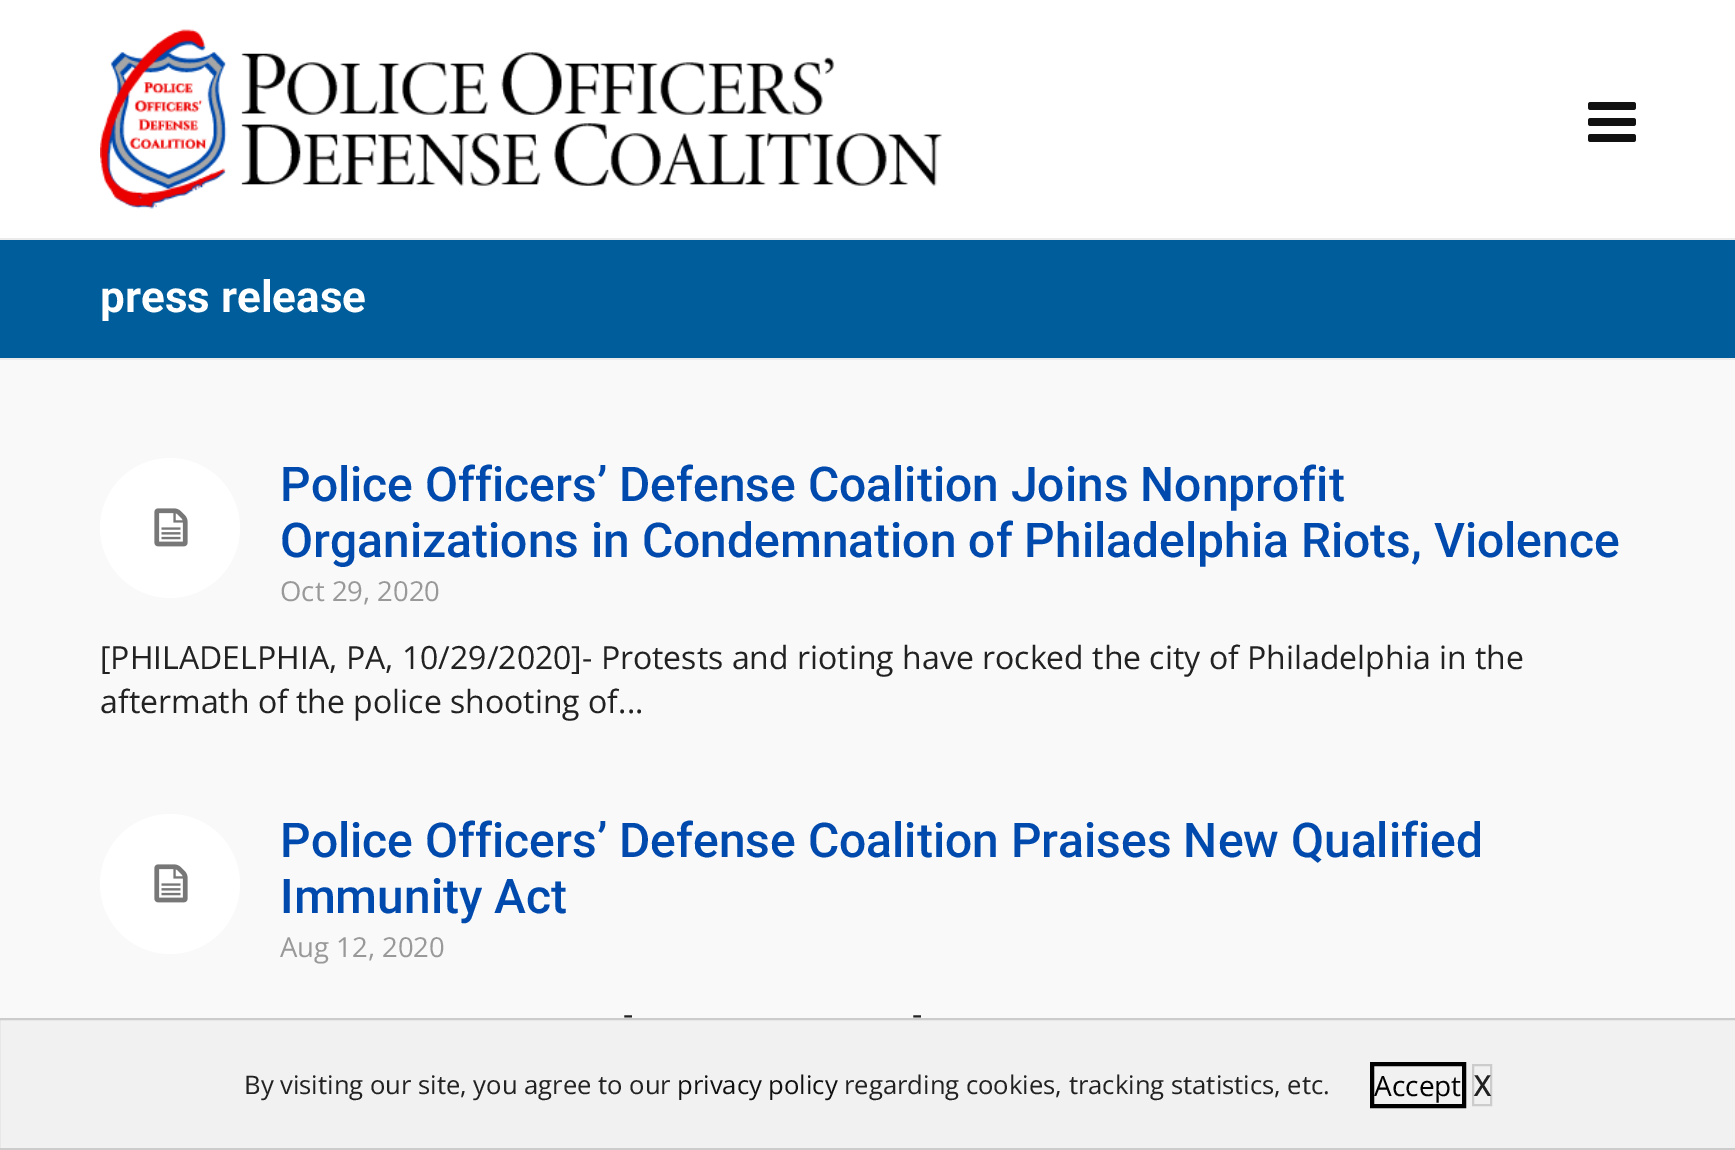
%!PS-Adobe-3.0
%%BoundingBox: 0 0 1735 1150
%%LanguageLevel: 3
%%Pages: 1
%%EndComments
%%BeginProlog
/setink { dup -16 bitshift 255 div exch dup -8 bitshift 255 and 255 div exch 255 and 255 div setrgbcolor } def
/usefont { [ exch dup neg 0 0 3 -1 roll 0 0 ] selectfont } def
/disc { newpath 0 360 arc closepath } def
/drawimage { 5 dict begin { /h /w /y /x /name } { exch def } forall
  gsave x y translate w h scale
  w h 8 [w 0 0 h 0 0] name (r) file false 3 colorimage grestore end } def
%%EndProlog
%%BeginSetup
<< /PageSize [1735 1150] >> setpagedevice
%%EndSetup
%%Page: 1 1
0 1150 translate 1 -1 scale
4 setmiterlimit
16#F9F9F9 setink
0 0 1735 1150 rectfill
16#FFFFFF setink
0 0 1735 238 rectfill
16#EBEBEB setink
0 238 1735 2 rectfill
(img1.raw) 100 29 842 180 drawimage
(img2.raw) 1588 102 48 40 drawimage
0 358 1735 2 rectfill
16#005D9B setink
0 240 1735 118 rectfill
/Roboto-Bold 44 usefont
16#FFFFFF setink
100 312 moveto (press release) show
170 528 70 disc fill
(img3.raw) 154 508 34 39 drawimage
/Roboto-Medium 48 usefont
16#004AAD setink
280 501 moveto (Police Officers’ Defense Coalition Joins Nonprofit) show
280 557 moveto (Organizations in Condemnation of Philadelphia Riots, Violence) show
/OpenSans-Regular 27.5 usefont
16#999999 setink
280 601 moveto (Oct 29, 2020) show
/OpenSans-Regular 32 usefont
16#222222 setink
100 669 moveto ([PHILADELPHIA, PA, 10/29/2020]- Protests and rioting have rocked the city of Philadelphia in the) show
100 713 moveto (aftermath of the police shooting of...) show
16#FFFFFF setink
170 884 70 disc fill
(img3.raw) 154 864 34 39 drawimage
/Roboto-Medium 48 usefont
16#004AAD setink
280 857 moveto (Police Officers’ Defense Coalition Praises New Qualified) show
280 913 moveto (Immunity Act) show
/OpenSans-Regular 27.5 usefont
16#999999 setink
280 957 moveto (Aug 12, 2020) show
/OpenSans-Regular 32 usefont
16#222222 setink
623 1025 moveto (-) show
912 1025 moveto (-) show
16#F1F1F1 setink
-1 1019 moveto 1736 1019 lineto 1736 1149 lineto -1 1149 lineto closepath gsave fill grestore
16#CCCCCC setink
2 setlinewidth
stroke
/OpenSans-Regular 25.6 usefont
16#222222 setink
244 1094 moveto (By visiting our site, you agree to our) show
16#111111 setink
677 1094 moveto (privacy policy) show
16#222222 setink
844 1094 moveto (regarding cookies, tracking statistics, etc.) show
16#000000 setink
4 setlinewidth
1372 1064 92 42 rectstroke
/OpenSans-Regular 28 usefont
1374 1096 moveto (Accept) show
16#CCCCCC setink
2 setlinewidth
1473 1065 18 40 rectstroke
/OpenSans-Bold 28 usefont
16#222222 setink
1474 1096 moveto (X) show
showpage
%%EOF
